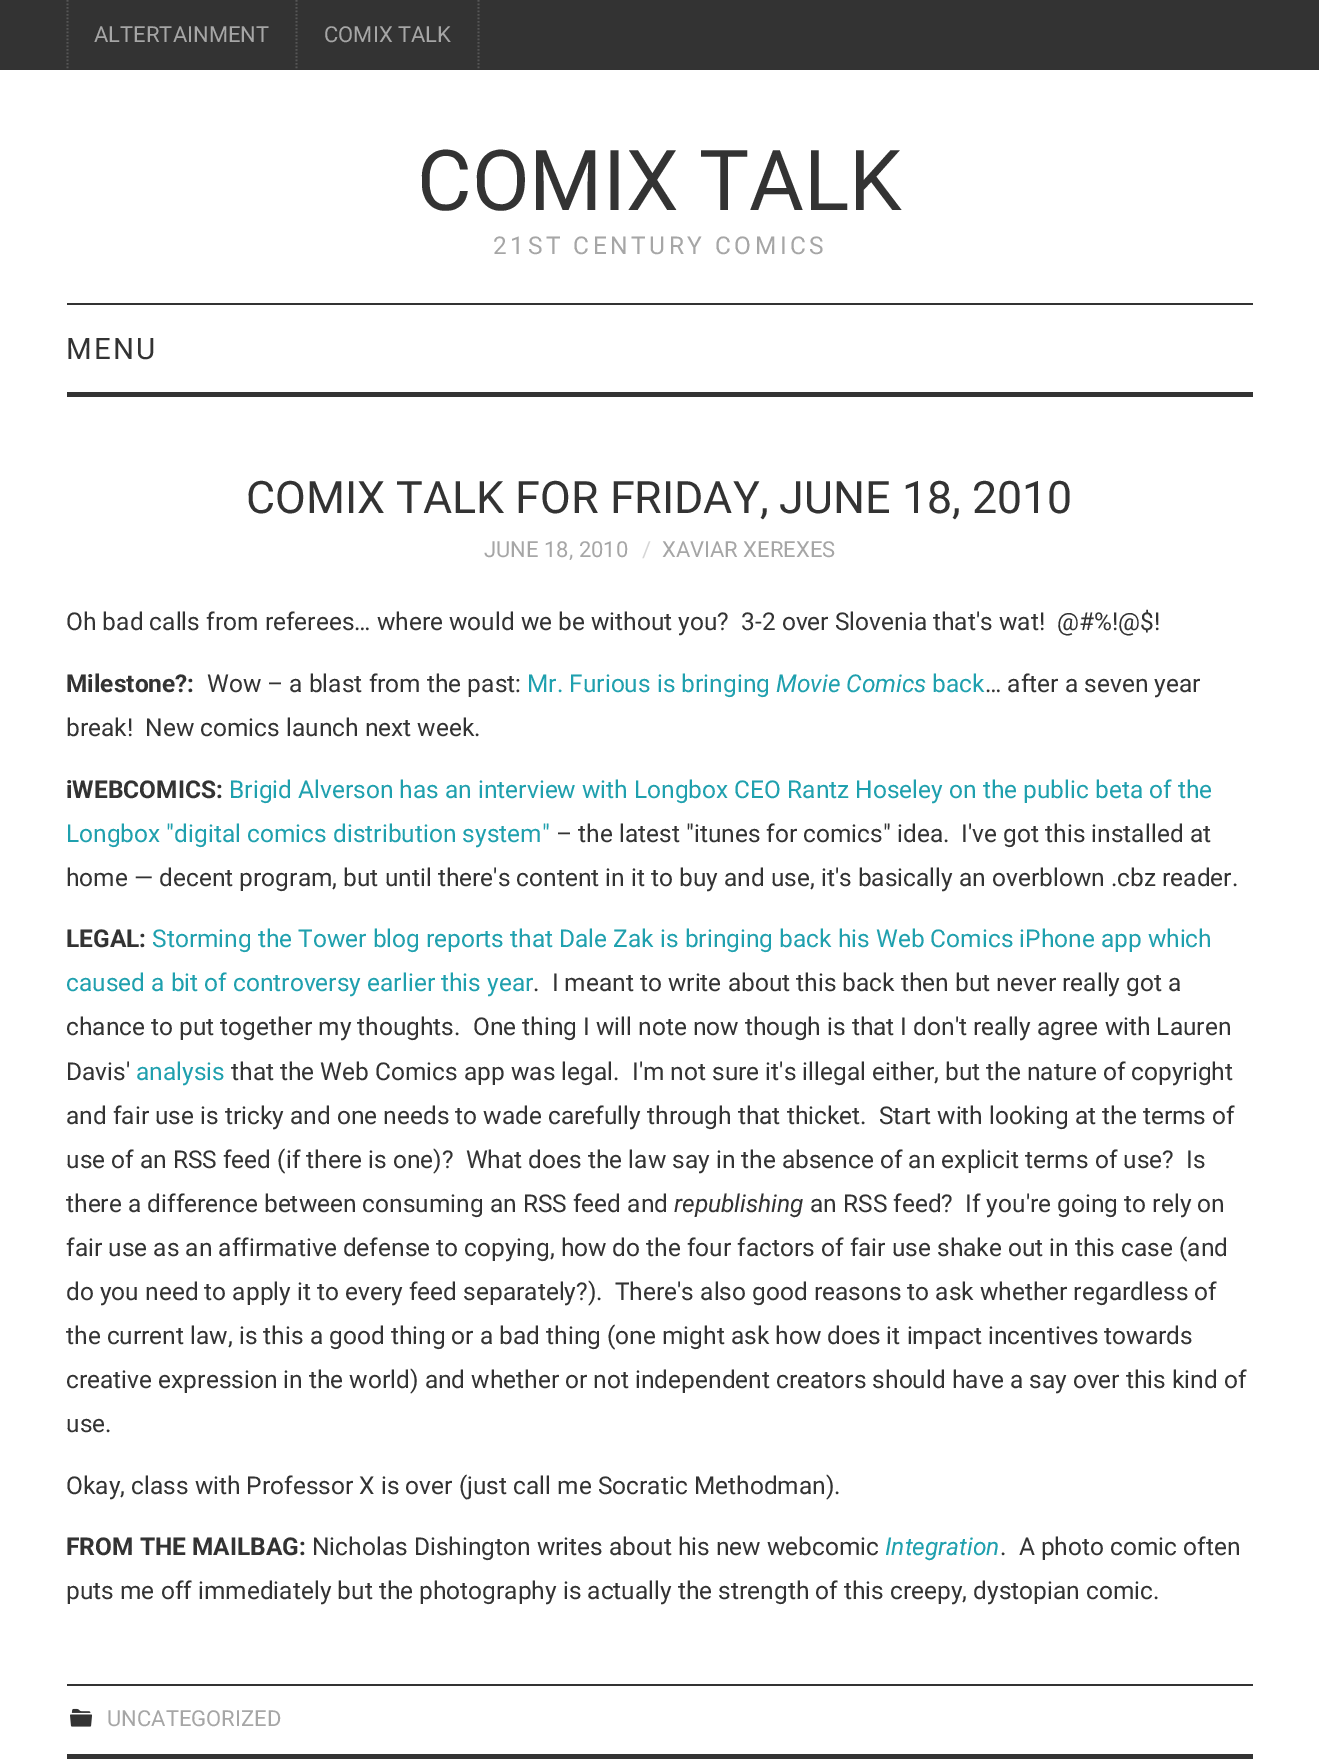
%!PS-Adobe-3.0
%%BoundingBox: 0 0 1319 1764
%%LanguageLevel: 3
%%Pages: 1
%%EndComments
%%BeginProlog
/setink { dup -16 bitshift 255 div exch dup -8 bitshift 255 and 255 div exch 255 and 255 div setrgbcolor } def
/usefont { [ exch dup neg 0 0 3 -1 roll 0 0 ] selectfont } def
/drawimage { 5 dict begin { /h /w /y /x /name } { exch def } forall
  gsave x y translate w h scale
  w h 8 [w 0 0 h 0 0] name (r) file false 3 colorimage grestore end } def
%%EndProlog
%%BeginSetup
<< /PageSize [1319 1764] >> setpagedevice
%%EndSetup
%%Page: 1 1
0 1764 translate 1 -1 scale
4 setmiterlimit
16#FFFFFF setink
0 0 1319 1764 rectfill
16#333333 setink
0 0 1319 70 rectfill
16#565656 setink
1.8 setlinewidth
[1.75 1.75] 0 setdash
67.5 0 moveto 67.5 70 lineto stroke
296.5 0 moveto 296.5 70 lineto stroke
/Roboto-Regular 22 usefont
16#A6A6A6 setink
94 42 moveto (ALTERTAINMENT) show
16#565656 setink
478.5 0 moveto 478.5 70 lineto stroke
16#A6A6A6 setink
324 42 moveto (COMIX TALK) show
/Roboto-Regular 84 usefont
16#333333 setink
417 210 moveto (COMIX TALK) show
/Roboto-Regular 24.5 usefont
16#A6A6A6 setink
493 254 moveto 3.5 0 (21ST CENTURY COMICS) ashow
16#333333 setink
67 303 1186 2 rectfill
67 392 1186 5 rectfill
/Roboto-Regular 29.5 usefont
66 359 moveto 2 0 (MENU) ashow
/Roboto-Regular 44.75 usefont
246 513 moveto (COMIX TALK FOR FRIDAY, JUNE 18, 2010) show
/Roboto-Regular 22 usefont
16#A6A6A6 setink
484 557 moveto (JUNE 18, 2010) show
16#D6D6D6 setink
642 557 moveto (/) show
16#A6A6A6 setink
662 557 moveto (XAVIAR XEREXES) show
/Roboto-Regular 24.5 usefont
16#333333 setink
66 630 moveto (Oh bad calls from referees… where would we be without you?  3-2 over Slovenia that's wat!  @#%!@$!) show
/Roboto-Bold 24.5 usefont
66 692 moveto (Milestone?:) show
/Roboto-Regular 24.5 usefont
207 692 moveto (Wow – a blast from the past:) show
16#1FA0AE setink
527 692 moveto (Mr. Furious is bringing) show
/Roboto-Italic 24.5 usefont
776 692 moveto (Movie Comics) show
/Roboto-Regular 24.5 usefont
932 692 moveto (back) show
16#333333 setink
985 692 moveto (… after a seven year) show
66 736 moveto (break!  New comics launch next week.) show
/Roboto-Bold 24.5 usefont
66 798 moveto (iWEBCOMICS:) show
/Roboto-Regular 24.5 usefont
16#1FA0AE setink
229 798 moveto (Brigid Alverson has an interview with Longbox CEO Rantz Hoseley on the public beta of the) show
66 842 moveto (Longbox "digital comics distribution system") show
16#333333 setink
556 842 moveto (– the latest "itunes for comics" idea.  I've got this installed at) show
66 886 moveto (home — decent program, but until there's content in it to buy and use, it's basically an overblown .cbz reader.) show
/Roboto-Bold 24.5 usefont
66 947 moveto (LEGAL:) show
/Roboto-Regular 24.5 usefont
16#1FA0AE setink
152 947 moveto (Storming the Tower blog reports that Dale Zak is bringing back his Web Comics iPhone app which) show
66 991 moveto (caused a bit of controversy earlier this year) show
16#333333 setink
[
    [(.  I meant to write about this back then but never really got a) 533 991]
    [(chance to put together my thoughts.  One thing I will note now though is that I don't really agree with Lauren) 66 1035]
    [(Davis') 66 1080]
] { aload pop moveto show } forall
16#1FA0AE setink
136 1080 moveto (analysis) show
16#333333 setink
[
    [(that the Web Comics app was legal.  I'm not sure it's illegal either, but the nature of copyright) 231 1080]
    [(and fair use is tricky and one needs to wade carefully through that thicket.  Start with looking at the terms of) 66 1124]
    [(use of an RSS feed \(if there is one\)?  What does the law say in the absence of an explicit terms of use?  Is) 66 1168]
    [(there a difference between consuming an RSS feed and) 66 1212]
] { aload pop moveto show } forall
/Roboto-Italic 24.5 usefont
674 1212 moveto (republishing) show
/Roboto-Regular 24.5 usefont
[
    [(an RSS feed?  If you're going to rely on) 810 1212]
    [(fair use as an affirmative defense to copying, how do the four factors of fair use shake out in this case \(and) 66 1256]
    [(do you need to apply it to every feed separately?\).  There's also good reasons to ask whether regardless of) 66 1300]
    [(the current law, is this a good thing or a bad thing \(one might ask how does it impact incentives towards) 66 1344]
    [(creative expression in the world\) and whether or not independent creators should have a say over this kind of) 66 1388]
    [(use.) 66 1432]
    [(Okay, class with Professor X is over \(just call me Socratic Methodman\).) 66 1494]
] { aload pop moveto show } forall
/Roboto-Bold 24.5 usefont
66 1555 moveto (FROM THE MAILBAG:) show
/Roboto-Regular 24.5 usefont
312 1555 moveto (Nicholas Dishington writes about his new webcomic) show
/Roboto-Italic 24.5 usefont
16#1FA0AE setink
885 1555 moveto (Integration) show
/Roboto-Regular 24.5 usefont
16#333333 setink
1000 1555 moveto (.  A photo comic often) show
66 1599 moveto (puts me off immediately but the photography is actually the strength of this creepy, dystopian comic.) show
67 1684 1186 2 rectfill
67 1754 1186 5 rectfill
(img1.raw) 70 1708 22 19 drawimage
/Roboto-Regular 22 usefont
16#A6A6A6 setink
107 1726 moveto (UNCATEGORIZED) show
showpage
%%EOF
